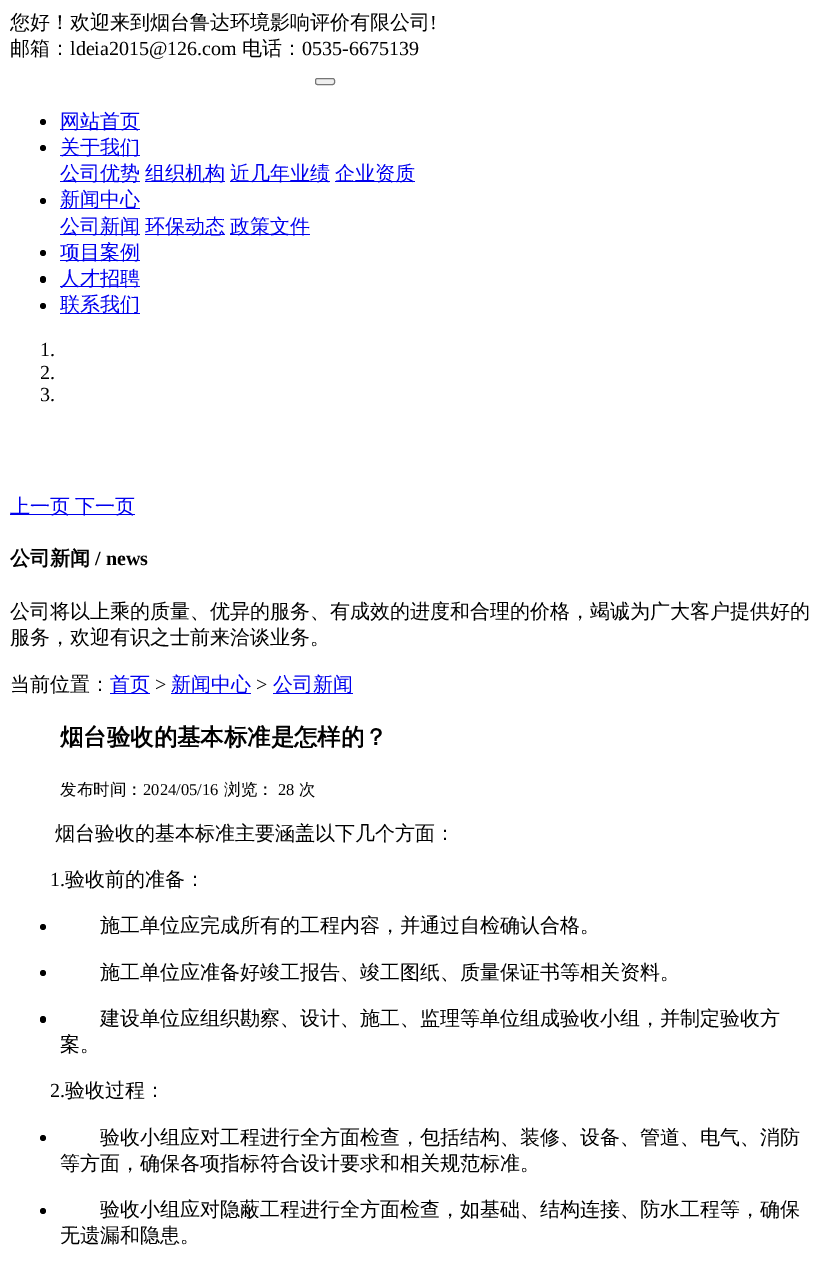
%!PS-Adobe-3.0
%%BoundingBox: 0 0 822 1267
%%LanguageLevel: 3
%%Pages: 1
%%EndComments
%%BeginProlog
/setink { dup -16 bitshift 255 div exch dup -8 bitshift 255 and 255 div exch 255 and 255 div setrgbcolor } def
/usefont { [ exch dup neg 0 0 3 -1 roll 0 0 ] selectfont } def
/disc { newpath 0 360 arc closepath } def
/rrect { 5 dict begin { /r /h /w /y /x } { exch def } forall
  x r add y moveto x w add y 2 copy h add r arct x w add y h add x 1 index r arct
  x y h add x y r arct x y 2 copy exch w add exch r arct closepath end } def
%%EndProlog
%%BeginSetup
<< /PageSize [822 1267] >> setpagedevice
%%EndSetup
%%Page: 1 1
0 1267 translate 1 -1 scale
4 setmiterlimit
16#FFFFFF setink
0 0 822 1267 rectfill
/WenQuanYiZenHei-Medium 20 usefont
16#000000 setink
10 29 moveto (您好！欢迎来到烟台鲁达环境影响评价有限公司) show
/LiberationSerif-Regular 20 usefont
430 29 moveto (!) show
/WenQuanYiZenHei-Medium 20 usefont
10 55 moveto (邮箱：) show
/LiberationSerif-Regular 20 usefont
70 55 moveto (ldeia2015@126.com) show
/WenQuanYiZenHei-Medium 20 usefont
242 55 moveto (电话：) show
/LiberationSerif-Regular 20 usefont
302 55 moveto (0535-6675139) show
16#EFEFEF setink
315.5 78.5 19 6 2 rrect gsave fill grestore
16#767676 setink
stroke
16#000000 setink
43 122 3 disc fill
16#0000EE setink
60 129 80 1 rectfill
/WenQuanYiZenHei-Medium 20 usefont
60 128 moveto (网站首页) show
16#000000 setink
43 148 3 disc fill
16#0000EE setink
60 155 80 1 rectfill
60 154 moveto (关于我们) show
60 181 80 1 rectfill
60 180 moveto (公司优势) show
145 181 80 1 rectfill
145 180 moveto (组织机构) show
230 181 100 1 rectfill
230 180 moveto (近几年业绩) show
335 181 80 1 rectfill
335 180 moveto (企业资质) show
16#000000 setink
43 201 3 disc fill
16#0000EE setink
60 208 80 1 rectfill
60 206 moveto (新闻中心) show
60 234 80 1 rectfill
60 233 moveto (公司新闻) show
145 234 80 1 rectfill
145 233 moveto (环保动态) show
230 234 80 1 rectfill
230 233 moveto (政策文件) show
16#000000 setink
43 253 3 disc fill
16#0000EE setink
60 260 80 1 rectfill
60 259 moveto (项目案例) show
16#000000 setink
40 276 6 7 3 rrect fill
16#0000EE setink
60 286 80 1 rectfill
60 285 moveto (人才招聘) show
16#000000 setink
43 306 3 disc fill
16#0000EE setink
60 313 80 1 rectfill
60 311 moveto (联系我们) show
/LiberationSerif-Regular 20 usefont
16#000000 setink
[
    [(1.) 40 356]
    [(2.) 40 379]
    [(3.) 40 401]
] { aload pop moveto show } forall
16#0000EE setink
10 514 125 1 rectfill
/WenQuanYiZenHei-Medium 20 usefont
10 513 moveto (上一页) show
75 513 moveto (下一页) show
/WenQuanYiZenHei-Bold 20 usefont
16#000000 setink
10 565 moveto (公司新闻) show
/LiberationSerif-Bold 20 usefont
95 565 moveto (/ news) show
/WenQuanYiZenHei-Medium 20 usefont
[
    [(公司将以上乘的质量、优异的服务、有成效的进度和合理的价格，竭诚为广大客户提供好的) 10 618]
    [(服务，欢迎有识之士前来洽谈业务。) 10 644]
    [(当前位置：) 10 691]
] { aload pop moveto show } forall
16#0000EE setink
110 693 40 1 rectfill
110 691 moveto (首页) show
/LiberationSerif-Regular 20 usefont
16#000000 setink
155 691 moveto (>) show
16#0000EE setink
171 693 80 1 rectfill
/WenQuanYiZenHei-Medium 20 usefont
171 691 moveto (新闻中心) show
/LiberationSerif-Regular 20 usefont
16#000000 setink
256 691 moveto (>) show
16#0000EE setink
273 693 80 1 rectfill
/WenQuanYiZenHei-Medium 20 usefont
273 691 moveto (公司新闻) show
/WenQuanYiZenHei-Bold 23.4 usefont
16#000000 setink
60 745 moveto (烟台验收的基本标准是怎样的？) show
/WenQuanYiZenHei-Medium 16.5 usefont
60 795 moveto (发布时间：) show
/LiberationSerif-Regular 16.5 usefont
143 795 moveto (2024/05/16) show
/WenQuanYiZenHei-Medium 16.5 usefont
224 795 moveto (浏览：) show
/LiberationSerif-Regular 16.5 usefont
278 795 moveto (28) show
/WenQuanYiZenHei-Medium 16.5 usefont
299 795 moveto (次) show
/WenQuanYiZenHei-Medium 20 usefont
55 840 moveto (烟台验收的基本标准主要涵盖以下几个方面：) show
/LiberationSerif-Regular 20 usefont
50 886 moveto (1.) show
/WenQuanYiZenHei-Medium 20 usefont
65 886 moveto (验收前的准备：) show
43 927 3 disc fill
100 932 moveto (施工单位应完成所有的工程内容，并通过自检确认合格。) show
43 973 3 disc fill
100 979 moveto (施工单位应准备好竣工报告、竣工图纸、质量保证书等相关资料。) show
40 1016 6 7 3 rrect fill
100 1025 moveto (建设单位应组织勘察、设计、施工、监理等单位组成验收小组，并制定验收方) show
60 1051 moveto (案。) show
/LiberationSerif-Regular 20 usefont
50 1097 moveto (2.) show
/WenQuanYiZenHei-Medium 20 usefont
65 1097 moveto (验收过程：) show
43 1138 3 disc fill
100 1144 moveto (验收小组应对工程进行全方面检查，包括结构、装修、设备、管道、电气、消防) show
60 1170 moveto (等方面，确保各项指标符合设计要求和相关规范标准。) show
43 1211 3 disc fill
100 1216 moveto (验收小组应对隐蔽工程进行全方面检查，如基础、结构连接、防水工程等，确保) show
60 1242 moveto (无遗漏和隐患。) show
showpage
%%EOF
